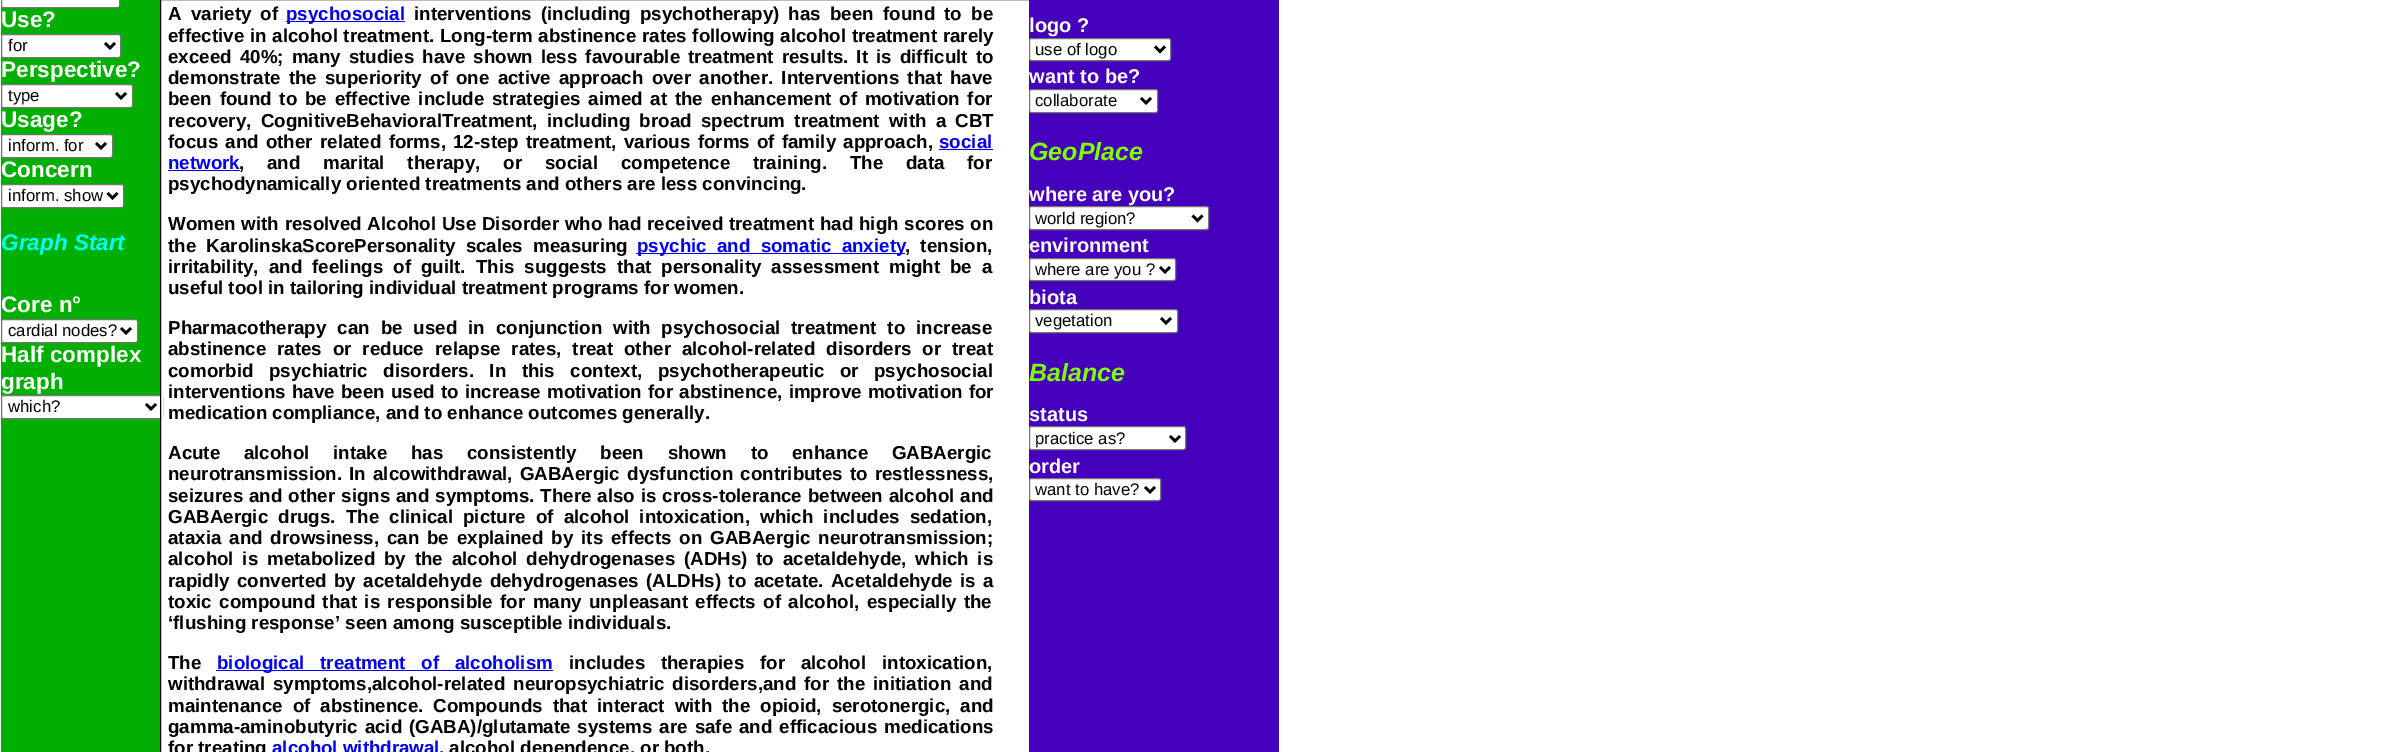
%!PS-Adobe-3.0
%%BoundingBox: 0 0 2388 752
%%LanguageLevel: 3
%%Pages: 1
%%EndComments
%%BeginProlog
/setink { dup -16 bitshift 255 div exch dup -8 bitshift 255 and 255 div exch 255 and 255 div setrgbcolor } def
/usefont { [ exch dup neg 0 0 3 -1 roll 0 0 ] selectfont } def
/rrect { 5 dict begin { /r /h /w /y /x } { exch def } forall
  x r add y moveto x w add y 2 copy h add r arct x w add y h add x 1 index r arct
  x y h add x y r arct x y 2 copy exch w add exch r arct closepath end } def
%%EndProlog
%%BeginSetup
<< /PageSize [2388 752] >> setpagedevice
%%EndSetup
%%Page: 1 1
0 752 translate 1 -1 scale
4 setmiterlimit
16#FFFFFF setink
0 0 2388 752 rectfill
16#00AF00 setink
1 0 159 752 rectfill
16#FFFFFF setink
1.5 -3.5 118 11 2 rrect gsave fill grestore
16#767676 setink
stroke
/LiberationSans-Bold 22.5 usefont
16#FFFFFF setink
1 27 moveto (Use?) show
1.5 395.5 161 23 2 rrect gsave fill grestore
16#767676 setink
stroke
16#FFFFFF setink
161 395 2 24 rectfill
16#000000 setink
160.5 -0.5 874 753 rectstroke
/LiberationSans-Bold 18.75 usefont
168 20 moveto 4 0 32 (A variety of) widthshow
16#0000EE setink
286 21 119 1 rectfill
286 20 moveto (psychosocial) show
16#000000 setink
414 20 moveto 4 0 32 (interventions \(including psychotherapy\) has been found to be) widthshow
168 42 moveto 0.5 0 32 (effective in alcohol treatment. Long-term abstinence rates following alcohol treatment rarely) widthshow
168 63 moveto 2.9 0 32 (exceed 40%; many studies have shown less favourable treatment results. It is difficult to) widthshow
168 84 moveto 3 0 32 (demonstrate the superiority of one active approach over another. Interventions that have) widthshow
168 105 moveto 2.6 0 32 (been found to be effective include strategies aimed at the enhancement of motivation for) widthshow
168 127 moveto 4 0 32 (recovery, CognitiveBehavioralTreatment, including broad spectrum treatment with a CBT) widthshow
168 148 moveto 2 0 32 (focus and other related forms, 12-step treatment, various forms of family approach,) widthshow
16#0000EE setink
939 148 moveto (social) show
939 149 54 1 rectfill
168 169 moveto (network) show
168 170 72 1 rectfill
16#000000 setink
239 169 moveto 17.6 0 32 (, and marital therapy, or social competence training. The data for) widthshow
168 190 moveto (psychodynamically oriented treatments and others are less convincing.) show
168 230 moveto 0.5 0 32 (Women with resolved Alcohol Use Disorder who had received treatment had high scores on) widthshow
168 252 moveto 5 0 32 (the KarolinskaScorePersonality scales measuring) widthshow
16#0000EE setink
636 253 269 1 rectfill
637 252 moveto 5 0 32 (psychic and somatic anxiety) widthshow
16#000000 setink
905 252 moveto 5 0 32 (, tension,) widthshow
168 273 moveto 4.9 0 32 (irritability, and feelings of guilt. This suggests that personality assessment might be a) widthshow
168 294 moveto (useful tool in tailoring individual treatment programs for women.) show
168 334 moveto 5.75 0 32 (Pharmacotherapy can be used in conjunction with psychosocial treatment to increase) widthshow
168 355 moveto 5.75 0 32 (abstinence rates or reduce relapse rates, treat other alcohol-related disorders or treat) widthshow
168 377 moveto 10.25 0 32 (comorbid psychiatric disorders. In this context, psychotherapeutic or psychosocial) widthshow
168 398 moveto 1 0 32 (interventions have been used to increase motivation for abstinence, improve motivation for) widthshow
168 419 moveto (medication compliance, and to enhance outcomes generally.) show
168 459 moveto 18.5 0 32 (Acute alcohol intake has consistently been shown to enhance GABAergic) widthshow
168 480 moveto 2 0 32 (neurotransmission. In alcowithdrawal, GABAergic dysfunction contributes to restlessness,) widthshow
168 502 moveto 0.75 0 32 (seizures and other signs and symptoms. There also is cross-tolerance between alcohol and) widthshow
168 523 moveto 5 0 32 (GABAergic drugs. The clinical picture of alcohol intoxication, which includes sedation,) widthshow
168 544 moveto 2.75 0 32 (ataxia and drowsiness, can be explained by its effects on GABAergic neurotransmission;) widthshow
168 565 moveto 3.6 0 32 (alcohol is metabolized by the alcohol dehydrogenases \(ADHs\) to acetaldehyde, which is) widthshow
168 587 moveto 2.25 0 32 (rapidly converted by acetaldehyde dehydrogenases \(ALDHs\) to acetate. Acetaldehyde is a) widthshow
168 608 moveto 2.25 0 32 (toxic compound that is responsible for many unpleasant effects of alcohol, especially the) widthshow
168 629 moveto (‘flushing response’ seen among susceptible individuals.) show
168 669 moveto (The) show
16#0000EE setink
216 670 337 1 rectfill
217 669 moveto 10.5 0 32 (biological treatment of alcoholism) widthshow
16#000000 setink
569 669 moveto 10.5 0 32 (includes therapies for alcohol intoxication,) widthshow
168 690 moveto 2.75 0 32 (withdrawal symptoms,alcohol-related neuropsychiatric disorders,and for the initiation and) widthshow
168 712 moveto 4.75 0 32 (maintenance of abstinence. Compounds that interact with the opioid, serotonergic, and) widthshow
168 733 moveto 1.75 0 32 (gamma-aminobutyric acid \(GABA\)/glutamate systems are safe and efficacious medications) widthshow
168 754 moveto (for treating) show
16#0000EE setink
272 754 moveto (alcohol withdrawal) show
16#000000 setink
439 754 moveto (, alcohol dependence, or both.) show
16#4400BB setink
1029 0 250 752 rectfill
/LiberationSans-Bold 20 usefont
16#FFFFFF setink
1029 32 moveto (logo ?) show
1029.5 38.5 141 22 2 rrect gsave fill grestore
16#767676 setink
stroke
16#000000 setink
2.5 setlinewidth
1155 46.5 moveto 1160 51.5 lineto 1165 46.5 lineto stroke
/LiberationSans-Regular 16.75 usefont
1035 55 moveto (use of logo) show
/LiberationSans-Bold 20 usefont
16#FFFFFF setink
1029 83 moveto (want to be?) show
1029.5 89.5 128 23 2 rrect gsave fill grestore
16#767676 setink
1 setlinewidth
stroke
16#000000 setink
2.5 setlinewidth
1141 98 moveto 1146 103 lineto 1151 98 lineto stroke
/LiberationSans-Regular 16.75 usefont
1035 106 moveto (collaborate) show
/LiberationSans-BoldItalic 25 usefont
16#80FF00 setink
1029 160 moveto (GeoPlace) show
/LiberationSans-Bold 20 usefont
16#FFFFFF setink
1029 201 moveto (where are you?) show
1029.5 206.5 179 23 2 rrect gsave fill grestore
16#767676 setink
1 setlinewidth
stroke
16#000000 setink
2.5 setlinewidth
1192.5 215.5 moveto 1197.5 220.5 lineto 1202.5 215.5 lineto stroke
/LiberationSans-Regular 16.75 usefont
1035 224 moveto (world region?) show
/LiberationSans-Bold 20 usefont
16#FFFFFF setink
1029 252 moveto (environment) show
1029.5 258.5 146 22 2 rrect gsave fill grestore
16#767676 setink
1 setlinewidth
stroke
16#000000 setink
2.5 setlinewidth
1160 267 moveto 1165 272 lineto 1170 267 lineto stroke
/LiberationSans-Regular 16.75 usefont
1035 275 moveto (where are you ?) show
/LiberationSans-Bold 20 usefont
16#FFFFFF setink
1029 304 moveto (biota) show
1029.5 309.5 148 23 2 rrect gsave fill grestore
16#767676 setink
1 setlinewidth
stroke
16#000000 setink
2.5 setlinewidth
1161 318 moveto 1166 323 lineto 1171 318 lineto stroke
/LiberationSans-Regular 16.75 usefont
1035 326 moveto (vegetation) show
/LiberationSans-BoldItalic 25 usefont
16#80FF00 setink
1029 381 moveto (Balance) show
/LiberationSans-Bold 20 usefont
16#FFFFFF setink
1029 421 moveto (status) show
1029.5 426.5 156 23 2 rrect gsave fill grestore
16#767676 setink
1 setlinewidth
stroke
16#000000 setink
2.5 setlinewidth
1170 436 moveto 1175 441 lineto 1180 436 lineto stroke
/LiberationSans-Regular 16.75 usefont
1035 444 moveto (practice as?) show
/LiberationSans-Bold 20 usefont
16#FFFFFF setink
1029 473 moveto (order) show
1029.5 478.5 131 22 2 rrect gsave fill grestore
16#767676 setink
1 setlinewidth
stroke
16#000000 setink
2.5 setlinewidth
1145 487 moveto 1150 492 lineto 1155 487 lineto stroke
/LiberationSans-Regular 16.75 usefont
1035 495 moveto (want to have?) show
16#FFFFFF setink
1.5 34.5 119 23 2 rrect gsave fill grestore
16#767676 setink
1 setlinewidth
stroke
16#000000 setink
2.5 setlinewidth
105 43 moveto 110 48 lineto 115 43 lineto stroke
8 51 moveto (for) show
/LiberationSans-Bold 22.5 usefont
16#FFFFFF setink
1 77 moveto (Perspective?) show
1.5 84.5 131 23 2 rrect gsave fill grestore
16#767676 setink
1 setlinewidth
stroke
16#000000 setink
2.5 setlinewidth
116 93 moveto 121 98 lineto 126 93 lineto stroke
/LiberationSans-Regular 16.75 usefont
8 101 moveto (type) show
/LiberationSans-Bold 22.5 usefont
16#FFFFFF setink
1 127 moveto (Usage?) show
1.5 134.5 111 23 2 rrect gsave fill grestore
16#767676 setink
1 setlinewidth
stroke
16#000000 setink
2.5 setlinewidth
96 143 moveto 101 148 lineto 106 143 lineto stroke
/LiberationSans-Regular 16.75 usefont
8 151 moveto (inform. for) show
/LiberationSans-Bold 22.5 usefont
16#FFFFFF setink
1 177 moveto (Concern) show
1.5 184.5 122 23 2 rrect gsave fill grestore
16#767676 setink
1 setlinewidth
stroke
16#000000 setink
2.5 setlinewidth
107.5 193 moveto 112.5 198 lineto 117.5 193 lineto stroke
/LiberationSans-Regular 16.75 usefont
8 201 moveto (inform. show) show
/LiberationSans-BoldItalic 22.5 usefont
16#00FFFF setink
1 250 moveto (Graph Start) show
/LiberationSans-Bold 22.5 usefont
16#FFFFFF setink
1 312 moveto (Core n°) show
1.5 319.5 136 23 2 rrect gsave fill grestore
16#767676 setink
1 setlinewidth
stroke
16#000000 setink
2.5 setlinewidth
121 328 moveto 126 333 lineto 131 328 lineto stroke
/LiberationSans-Regular 16.75 usefont
8 336 moveto (cardial nodes?) show
/LiberationSans-Bold 22.5 usefont
16#FFFFFF setink
1 362 moveto (Half complex) show
1 389 moveto (graph) show
16#000000 setink
146 404 moveto 151 409 lineto 156 404 lineto stroke
/LiberationSans-Regular 16.75 usefont
8 412 moveto (which?) show
showpage
%%EOF
